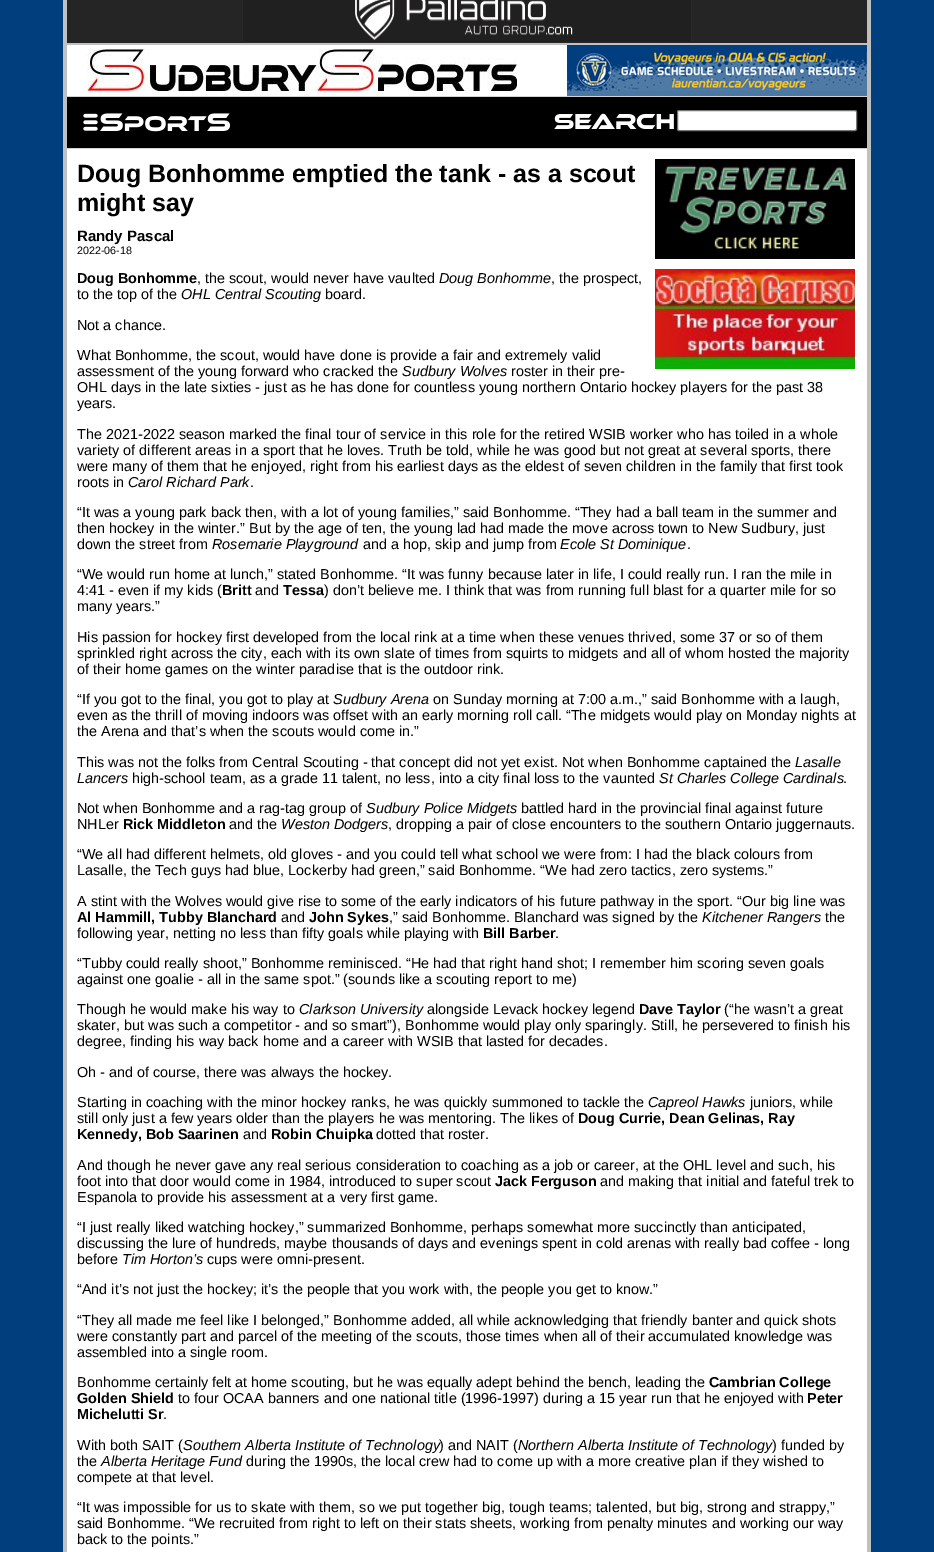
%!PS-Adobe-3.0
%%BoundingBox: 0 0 934 1552
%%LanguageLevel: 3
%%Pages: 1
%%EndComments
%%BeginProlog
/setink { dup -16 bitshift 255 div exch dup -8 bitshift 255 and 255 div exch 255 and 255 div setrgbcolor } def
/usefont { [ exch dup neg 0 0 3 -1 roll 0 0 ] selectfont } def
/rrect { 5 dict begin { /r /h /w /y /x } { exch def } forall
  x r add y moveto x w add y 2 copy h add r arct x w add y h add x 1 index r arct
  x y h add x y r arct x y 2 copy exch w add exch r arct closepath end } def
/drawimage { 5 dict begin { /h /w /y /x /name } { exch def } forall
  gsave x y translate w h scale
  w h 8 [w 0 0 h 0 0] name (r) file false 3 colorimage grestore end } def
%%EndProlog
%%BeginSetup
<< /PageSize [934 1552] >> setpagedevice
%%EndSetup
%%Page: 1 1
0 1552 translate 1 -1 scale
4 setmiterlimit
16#FFFFFF setink
0 0 934 1552 rectfill
[
    [0 0 63 1552 16#013E7D]
    [867 0 4 1552 16#C0C0C0]
    [63 0 4 1552 16#C0C0C0]
    [67 0 800 43 16#252525]
    [67 43 800 2 16#C0C0C0]
] { aload pop setink rectfill } forall
(img1.raw) 242 0 450 43 drawimage
16#D3D3D3 setink
67 96 800 1 rectfill
(img2.raw) 87 49 430 42 drawimage
(img3.raw) 567 45 300 51 drawimage
16#000000 setink
67 97 800 51 rectfill
16#D3D3D3 setink
67 148 800 1 rectfill
(img4.raw) 83 113 147 19 drawimage
(img5.raw) 554 113 120 16 drawimage
16#FFFFFF setink
677.5 110.5 179 20 1.5 rrect gsave fill grestore
16#767676 setink
stroke
(img6.raw) 655 159 200 100 drawimage
(img7.raw) 655 269 200 100 drawimage
/LiberationSans-Bold 25 usefont
16#000000 setink
77 182 moveto (Doug Bonhomme emptied the tank - as a scout) show
77 211 moveto (might say) show
/LiberationSans-Bold 15 usefont
77 241 moveto (Randy Pascal) show
/LiberationSans-Regular 10.75 usefont
77 254 moveto (2022-06-18) show
/LiberationSans-Bold 14.4 usefont
77 283 moveto (Doug Bonhomme) show
/LiberationSans-Regular 14.4 usefont
197 283 moveto (, the scout, would never have vaulted) show
/LiberationSans-Italic 14.4 usefont
439 283 moveto (Doug Bonhomme) show
/LiberationSans-Regular 14.4 usefont
551 283 moveto (, the prospect,) show
77 299 moveto (to the top of the) show
/LiberationSans-Italic 14.4 usefont
181 299 moveto (OHL Central Scouting) show
/LiberationSans-Regular 14.4 usefont
[
    [(board.) 325 299]
    [(Not a chance.) 77 330]
    [(What Bonhomme, the scout, would have done is provide a fair and extremely valid) 77 360]
    [(assessment of the young forward who cracked the) 77 376]
] { aload pop moveto show } forall
/LiberationSans-Italic 14.4 usefont
402 376 moveto (Sudbury Wolves) show
/LiberationSans-Regular 14.4 usefont
[
    [(roster in their pre-) 511 376]
    [(OHL days in the late sixties - just as he has done for countless young northern Ontario hockey players for the past 38) 77 392]
    [(years.) 77 408]
    [(The 2021-2022 season marked the final tour of service in this role for the retired WSIB worker who has toiled in a whole) 77 439]
    [(variety of different areas in a sport that he loves. Truth be told, while he was good but not great at several sports, there) 77 455]
    [(were many of them that he enjoyed, right from his earliest days as the eldest of seven children in the family that first took) 77 471]
    [(roots in) 77 487]
] { aload pop moveto show } forall
/LiberationSans-Italic 14.4 usefont
128 487 moveto (Carol Richard Park) show
/LiberationSans-Regular 14.4 usefont
[
    [(.) 250 487]
    [(“It was a young park back then, with a lot of young families,” said Bonhomme. “They had a ball team in the summer and) 77 517]
    [(then hockey in the winter.” But by the age of ten, the young lad had made the move across town to New Sudbury, just) 77 533]
    [(down the street from) 77 549]
] { aload pop moveto show } forall
/LiberationSans-Italic 14.4 usefont
212 549 moveto (Rosemarie Playground) show
/LiberationSans-Regular 14.4 usefont
363 549 moveto (and a hop, skip and jump from) show
/LiberationSans-Italic 14.4 usefont
560 549 moveto (Ecole St Dominique) show
/LiberationSans-Regular 14.4 usefont
[
    [(.) 687 549]
    [(“We would run home at lunch,” stated Bonhomme. “It was funny because later in life, I could really run. I ran the mile in) 77 579]
    [(4:41 - even if my kids \() 77 595]
] { aload pop moveto show } forall
/LiberationSans-Bold 14.4 usefont
222 595 moveto (Britt) show
/LiberationSans-Regular 14.4 usefont
255 595 moveto (and) show
/LiberationSans-Bold 14.4 usefont
283 595 moveto (Tessa) show
/LiberationSans-Regular 14.4 usefont
[
    [(\) don’t believe me. I think that was from running full blast for a quarter mile for so) 324 595]
    [(many years.”) 77 611]
    [(His passion for hockey first developed from the local rink at a time when these venues thrived, some 37 or so of them) 77 642]
    [(sprinkled right across the city, each with its own slate of times from squirts to midgets and all of whom hosted the majority) 77 658]
    [(of their home games on the winter paradise that is the outdoor rink.) 77 674]
    [(“If you got to the final, you got to play at) 77 704]
] { aload pop moveto show } forall
/LiberationSans-Italic 14.4 usefont
333 704 moveto (Sudbury Arena) show
/LiberationSans-Regular 14.4 usefont
[
    [(on Sunday morning at 7:00 a.m.,” said Bonhomme with a laugh,) 433 704]
    [(even as the thrill of moving indoors was offset with an early morning roll call. “The midgets would play on Monday nights at) 77 720]
    [(the Arena and that’s when the scouts would come in.”) 77 736]
    [(This was not the folks from Central Scouting - that concept did not yet exist. Not when Bonhomme captained the) 77 767]
] { aload pop moveto show } forall
/LiberationSans-Italic 14.4 usefont
795 767 moveto (Lasalle) show
77 783 moveto (Lancers) show
/LiberationSans-Regular 14.4 usefont
132 783 moveto (high-school team, as a grade 11 talent, no less, into a city final loss to the vaunted) show
/LiberationSans-Italic 14.4 usefont
659 783 moveto (St Charles College Cardinals) show
/LiberationSans-Regular 14.4 usefont
843 783 moveto (.) show
77 813 moveto (Not when Bonhomme and a rag-tag group of) show
/LiberationSans-Italic 14.4 usefont
366 813 moveto (Sudbury Police Midgets) show
/LiberationSans-Regular 14.4 usefont
521 813 moveto (battled hard in the provincial final against future) show
77 829 moveto (NHLer) show
/LiberationSans-Bold 14.4 usefont
123 829 moveto (Rick Middleton) show
/LiberationSans-Regular 14.4 usefont
229 829 moveto (and the) show
/LiberationSans-Italic 14.4 usefont
281 829 moveto (Weston Dodgers) show
/LiberationSans-Regular 14.4 usefont
[
    [(, dropping a pair of close encounters to the southern Ontario juggernauts.) 388 829]
    [(“We all had different helmets, old gloves - and you could tell what school we were from: I had the black colours from) 77 859]
    [(Lasalle, the Tech guys had blue, Lockerby had green,” said Bonhomme. “We had zero tactics, zero systems.”) 77 875]
    [(A stint with the Wolves would give rise to some of the early indicators of his future pathway in the sport. “Our big line was) 77 906]
] { aload pop moveto show } forall
/LiberationSans-Bold 14.4 usefont
77 922 moveto (Al Hammill, Tubby Blanchard) show
/LiberationSans-Regular 14.4 usefont
281 922 moveto (and) show
/LiberationSans-Bold 14.4 usefont
309 922 moveto (John Sykes) show
/LiberationSans-Regular 14.4 usefont
389 922 moveto (,” said Bonhomme. Blanchard was signed by the) show
/LiberationSans-Italic 14.4 usefont
702 922 moveto (Kitchener Rangers) show
/LiberationSans-Regular 14.4 usefont
825 922 moveto (the) show
77 938 moveto (following year, netting no less than fifty goals while playing with) show
/LiberationSans-Bold 14.4 usefont
483 938 moveto (Bill Barber) show
/LiberationSans-Regular 14.4 usefont
[
    [(.) 555 938]
    [(“Tubby could really shoot,” Bonhomme reminisced. “He had that right hand shot; I remember him scoring seven goals) 77 968]
    [(against one goalie - all in the same spot.” \(sounds like a scouting report to me\)) 77 984]
    [(Though he would make his way to) 77 1014]
] { aload pop moveto show } forall
/LiberationSans-Italic 14.4 usefont
299 1014 moveto (Clarkson University) show
/LiberationSans-Regular 14.4 usefont
427 1014 moveto (alongside Levack hockey legend) show
/LiberationSans-Bold 14.4 usefont
639 1014 moveto (Dave Taylor) show
/LiberationSans-Regular 14.4 usefont
[
    [(\(“he wasn’t a great) 724 1014]
    [(skater, but was such a competitor - and so smart”\), Bonhomme would play only sparingly. Still, he persevered to finish his) 77 1030]
    [(degree, finding his way back home and a career with WSIB that lasted for decades.) 77 1046]
    [(Oh - and of course, there was always the hockey.) 77 1077]
    [(Starting in coaching with the minor hockey ranks, he was quickly summoned to tackle the) 77 1107]
] { aload pop moveto show } forall
/LiberationSans-Italic 14.4 usefont
648 1107 moveto (Capreol Hawks) show
/LiberationSans-Regular 14.4 usefont
750 1107 moveto (juniors, while) show
77 1123 moveto (still only just a few years older than the players he was mentoring. The likes of) show
/LiberationSans-Bold 14.4 usefont
578 1123 moveto (Doug Currie, Dean Gelinas, Ray) show
77 1139 moveto (Kennedy, Bob Saarinen) show
/LiberationSans-Regular 14.4 usefont
243 1139 moveto (and) show
/LiberationSans-Bold 14.4 usefont
271 1139 moveto (Robin Chuipka) show
/LiberationSans-Regular 14.4 usefont
[
    [(dotted that roster.) 376 1139]
    [(And though he never gave any real serious consideration to coaching as a job or career, at the OHL level and such, his) 77 1170]
    [(foot into that door would come in 1984, introduced to super scout) 77 1186]
] { aload pop moveto show } forall
/LiberationSans-Bold 14.4 usefont
495 1186 moveto (Jack Ferguson) show
/LiberationSans-Regular 14.4 usefont
[
    [(and making that initial and fateful trek to) 600 1186]
    [(Espanola to provide his assessment at a very first game.) 77 1202]
    [(“I just really liked watching hockey,” summarized Bonhomme, perhaps somewhat more succinctly than anticipated,) 77 1232]
    [(discussing the lure of hundreds, maybe thousands of days and evenings spent in cold arenas with really bad coffee - long) 77 1248]
    [(before) 77 1264]
] { aload pop moveto show } forall
/LiberationSans-Italic 14.4 usefont
122 1264 moveto (Tim Horton’s) show
/LiberationSans-Regular 14.4 usefont
[
    [(cups were omni-present.) 207 1264]
    [(“And it’s not just the hockey; it’s the people that you work with, the people you get to know.”) 77 1294]
    [(“They all made me feel like I belonged,” Bonhomme added, all while acknowledging that friendly banter and quick shots) 77 1325]
    [(were constantly part and parcel of the meeting of the scouts, those times when all of their accumulated knowledge was) 77 1341]
    [(assembled into a single room.) 77 1357]
    [(Bonhomme certainly felt at home scouting, but he was equally adept behind the bench, leading the) 77 1387]
] { aload pop moveto show } forall
/LiberationSans-Bold 14.4 usefont
709 1387 moveto (Cambrian College) show
77 1403 moveto (Golden Shield) show
/LiberationSans-Regular 14.4 usefont
178 1403 moveto (to four OCAA banners and one national title \(1996-1997\) during a 15 year run that he enjoyed with) show
/LiberationSans-Bold 14.4 usefont
807 1403 moveto (Peter) show
77 1419 moveto (Michelutti Sr) show
/LiberationSans-Regular 14.4 usefont
163 1419 moveto (.) show
77 1450 moveto (With both SAIT \() show
/LiberationSans-Italic 14.4 usefont
183 1450 moveto (Southern Alberta Institute of Technology) show
/LiberationSans-Regular 14.4 usefont
439 1450 moveto (\) and NAIT \() show
/LiberationSans-Italic 14.4 usefont
518 1450 moveto (Northern Alberta Institute of Technology) show
/LiberationSans-Regular 14.4 usefont
772 1450 moveto (\) funded by) show
77 1466 moveto (the) show
/LiberationSans-Italic 14.4 usefont
101 1466 moveto (Alberta Heritage Fund) show
/LiberationSans-Regular 14.4 usefont
[
    [(during the 1990s, the local crew had to come up with a more creative plan if they wished to) 246 1466]
    [(compete at that level.) 77 1482]
    [(“It was impossible for us to skate with them, so we put together big, tough teams; talented, but big, strong and strappy,”) 77 1512]
    [(said Bonhomme. “We recruited from right to left on their stats sheets, working from penalty minutes and working our way) 77 1528]
    [(back to the points.”) 77 1544]
] { aload pop moveto show } forall
16#013E7D setink
871 0 63 1552 rectfill
showpage
%%EOF
